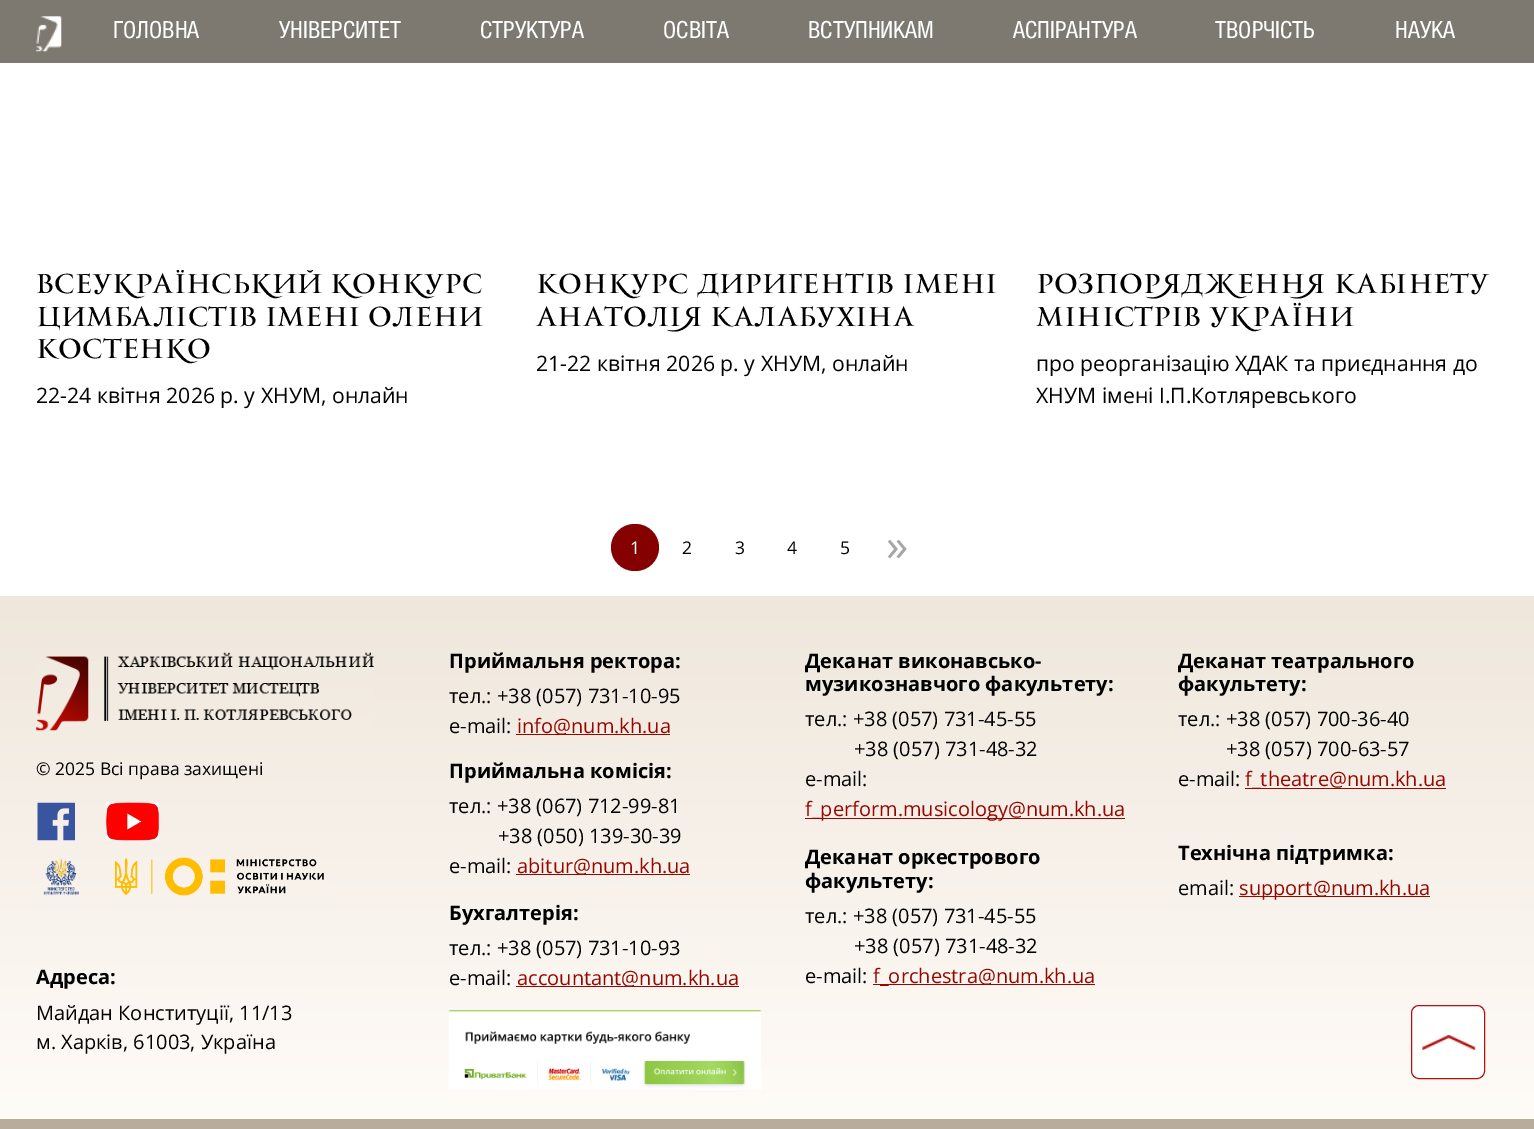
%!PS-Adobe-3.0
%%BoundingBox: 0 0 1534 1129
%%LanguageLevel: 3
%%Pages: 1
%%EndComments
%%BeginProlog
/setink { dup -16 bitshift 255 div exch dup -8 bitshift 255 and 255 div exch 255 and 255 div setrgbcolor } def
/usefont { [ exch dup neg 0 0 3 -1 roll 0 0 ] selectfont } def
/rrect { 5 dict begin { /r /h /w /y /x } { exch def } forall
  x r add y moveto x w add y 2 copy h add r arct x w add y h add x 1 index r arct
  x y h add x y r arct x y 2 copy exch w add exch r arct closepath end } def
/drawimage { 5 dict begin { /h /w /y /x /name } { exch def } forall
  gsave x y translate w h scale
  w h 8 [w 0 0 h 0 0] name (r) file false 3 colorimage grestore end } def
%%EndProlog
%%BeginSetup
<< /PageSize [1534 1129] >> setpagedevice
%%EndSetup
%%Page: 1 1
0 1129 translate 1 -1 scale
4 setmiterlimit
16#FFFFFF setink
0 0 1534 1129 rectfill
16#7D7870 setink
0 0 1534 63 rectfill
(img1.raw) 36 16 26 36 drawimage
/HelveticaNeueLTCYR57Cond-Regular 23.75 usefont
16#FFFFFF setink
[
    [(ГОЛОВНА) 113 38]
    [(УНІВЕРСИТЕТ) 279 38]
    [(СТРУКТУРА) 480 38]
    [(ОСВІТА) 663 38]
    [(ВСТУПНИКАМ) 808 38]
    [(АСПІРАНТУРА) 1013 38]
    [(ТВОРЧІСТЬ) 1215 38]
    [(НАУКА) 1395 38]
] { aload pop moveto show } forall
gsave 0 596 moveto 1534 596 lineto 1534 1119 lineto 0 1119 lineto closepath clip newpath
<< /ShadingType 2 /ColorSpace /DeviceRGB /Coords [768 596 768 1119] /Extend [true true] /Function << /FunctionType 2 /Domain [0 1] /C0 [0.937 0.906 0.863] /C1 [1 0.984 0.969] /N 1 >> >> shfill grestore
1411 1005 74 74 8 rrect fill
(img2.raw) 1422 1035 54 15 drawimage
16#B21212 setink
1411.5 1005.5 73 73 7.5 rrect stroke
gsave
36 270 463 98 rectclip
/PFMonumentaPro-Regular 26.25 usefont
16#000000 setink
36 293 moveto (Всеукраїнський конкурс) show
grestore
/PFMonumentaPro-Regular 26.25 usefont
16#000000 setink
36 326 moveto (цимбалістів імені Олени) show
36 358 moveto (Костенко) show
/OpenSans-Regular 21.25 usefont
36 403 moveto (22-24 квітня 2026 р. у ХНУМ, онлайн) show
/PFMonumentaPro-Regular 26.25 usefont
536 293 moveto (Конкурс диригентів імені) show
536 326 moveto (Анатолія Калабухіна) show
/OpenSans-Regular 21.25 usefont
536 371 moveto (21-22 квітня 2026 р. у ХНУМ, онлайн) show
/PFMonumentaPro-Regular 26.25 usefont
1036 293 moveto (Розпорядження Кабінету) show
1036 326 moveto (Міністрів України) show
/OpenSans-Regular 21.25 usefont
1036 371 moveto (про реорганізацію ХДАК та приєднання до) show
1036 403 moveto (ХНУМ імені І.П.Котляревського) show
16#850000 setink
611 524 48 47 23.5 rrect fill
/OpenSans-Regular 17.5 usefont
16#FFFFFF setink
630 554 moveto (1) show
16#000000 setink
[
    [(2) 682 554]
    [(3) 735 554]
    [(4) 787 554]
    [(5) 840 554]
] { aload pop moveto show } forall
/OpenSans-Regular 45 usefont
16#A6A6A6 setink
886 561 moveto (») show
(img3.raw) 36 652 338 79 drawimage
/OpenSans-Regular 17.5 usefont
16#000000 setink
36 775 moveto (© 2025 Всі права захищені) show
(img4.raw) 37 802 38 39 drawimage
(img5.raw) 106 802 53 39 drawimage
(img6.raw) 43 858 36 38 drawimage
(img7.raw) 115 857 209 39 drawimage
/OpenSans-Bold 20 usefont
36 984 moveto (Адреса:) show
/OpenSans-Regular 20 usefont
36 1020 moveto (Майдан Конституцiї, 11/13) show
36 1049 moveto (м. Харкiв, 61003, Україна) show
/OpenSans-Bold 20 usefont
449 668 moveto (Приймальня ректора:) show
/OpenSans-Regular 20 usefont
449 703 moveto (тел.: +38 \(057\) 731-10-95) show
449 733 moveto (e-mail:) show
16#980600 setink
516 734 154 1 rectfill
517 733 moveto (info@num.kh.ua) show
/OpenSans-Bold 20 usefont
16#000000 setink
449 778 moveto (Приймальна комісія:) show
/OpenSans-Regular 20 usefont
[
    [(тел.: +38 \(067\) 712-99-81) 449 813]
    [(+38 \(050\) 139-30-39) 498 843]
    [(e-mail:) 449 873]
] { aload pop moveto show } forall
16#980600 setink
516 874 174 1 rectfill
517 873 moveto (abitur@num.kh.ua) show
/OpenSans-Bold 20 usefont
16#000000 setink
449 920 moveto (Бухгалтерія:) show
/OpenSans-Regular 20 usefont
449 955 moveto (тел.: +38 \(057\) 731-10-93) show
449 985 moveto (e-mail:) show
16#980600 setink
516 986 223 1 rectfill
517 985 moveto (accountant@num.kh.ua) show
(img8.raw) 448 1010 314 80 drawimage
/OpenSans-Bold 20 usefont
16#000000 setink
805 668 moveto (Деканат виконавсько-) show
805 691 moveto (музикознавчого факультету:) show
/OpenSans-Regular 20 usefont
[
    [(тел.: +38 \(057\) 731-45-55) 805 726]
    [(+38 \(057\) 731-48-32) 854 756]
    [(e-mail:) 805 786]
] { aload pop moveto show } forall
16#980600 setink
805 818 320 1 rectfill
805 816 moveto (f_perform.musicology@num.kh.ua) show
/OpenSans-Bold 20 usefont
16#000000 setink
805 864 moveto (Деканат оркестрового) show
805 888 moveto (факультету:) show
/OpenSans-Regular 20 usefont
[
    [(тел.: +38 \(057\) 731-45-55) 805 923]
    [(+38 \(057\) 731-48-32) 854 953]
    [(e-mail:) 805 983]
] { aload pop moveto show } forall
16#980600 setink
873 984 222 1 rectfill
873 983 moveto (f_orchestra@num.kh.ua) show
/OpenSans-Bold 20 usefont
16#000000 setink
1178 668 moveto (Деканат театрального) show
1178 691 moveto (факультету:) show
/OpenSans-Regular 20 usefont
[
    [(тел.: +38 \(057\) 700-36-40) 1178 726]
    [(+38 \(057\) 700-63-57) 1226 756]
    [(e-mail:) 1178 786]
] { aload pop moveto show } forall
16#980600 setink
1245 788 201 1 rectfill
1245 786 moveto (f_theatre@num.kh.ua) show
/OpenSans-Bold 20 usefont
16#000000 setink
1178 860 moveto (Технічна підтримка:) show
/OpenSans-Regular 20 usefont
1178 895 moveto (email:) show
16#980600 setink
1239 896 191 1 rectfill
1239 895 moveto (support@num.kh.ua) show
16#B8AD9D setink
0 1119 1534 10 rectfill
showpage
%%EOF
